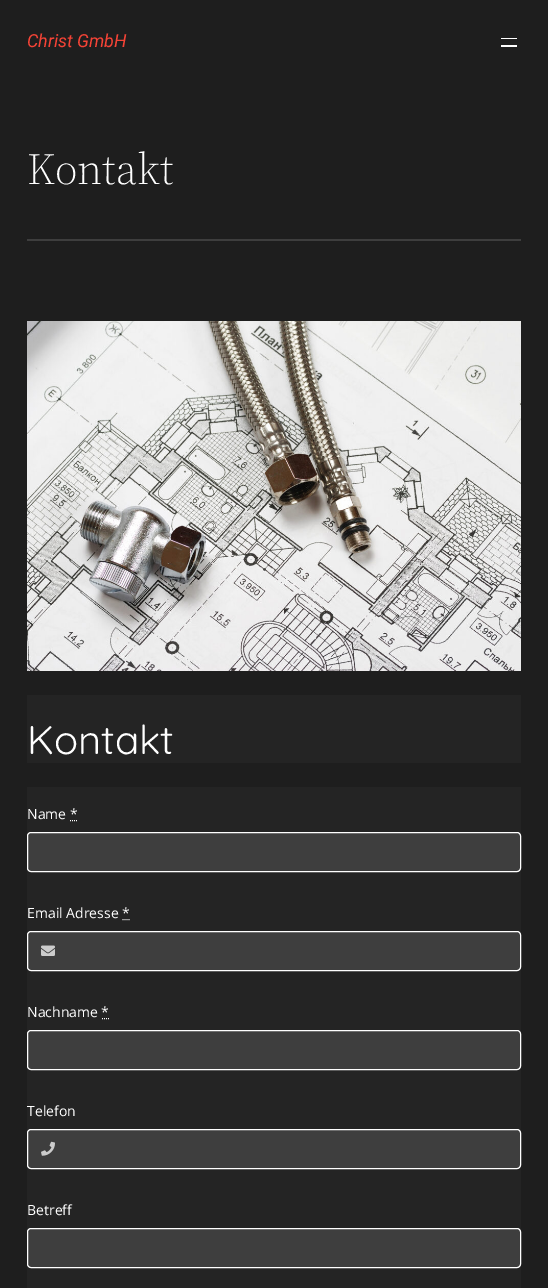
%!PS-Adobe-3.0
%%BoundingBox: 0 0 548 1288
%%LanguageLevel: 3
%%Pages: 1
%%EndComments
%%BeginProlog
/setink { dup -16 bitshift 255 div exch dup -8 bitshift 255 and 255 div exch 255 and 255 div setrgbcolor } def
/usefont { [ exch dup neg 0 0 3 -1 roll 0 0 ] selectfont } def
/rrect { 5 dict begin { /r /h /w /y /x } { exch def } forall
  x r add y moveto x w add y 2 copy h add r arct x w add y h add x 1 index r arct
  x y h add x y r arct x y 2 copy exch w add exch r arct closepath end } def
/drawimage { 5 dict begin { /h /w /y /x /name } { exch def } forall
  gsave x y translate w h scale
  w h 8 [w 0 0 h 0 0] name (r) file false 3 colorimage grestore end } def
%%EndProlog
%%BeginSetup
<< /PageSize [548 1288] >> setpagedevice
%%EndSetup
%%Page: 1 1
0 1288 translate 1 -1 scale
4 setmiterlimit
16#1E1E1E setink
0 0 548 1288 rectfill
/Roboto-Italic 18 usefont
16#F44336 setink
27 47 moveto (Christ GmbH) show
16#FFFFFF setink
501 38 16 1 rectfill
501 45 16 2 rectfill
/SourceSerif4-Light 44 usefont
27 184 moveto (Kontakt) show
16#3E3E3E setink
27 239 494 2 rectfill
(img1.raw) 27 321 494 350 drawimage
16#242424 setink
27 695 494 68 rectfill
/Quicksand-Light 40 usefont
16#FFFFFF setink
27 754 moveto (Kontakt) show
16#242424 setink
27 787 494 501 rectfill
/OpenSans-Regular 14 usefont
16#FFFFFF setink
27 819 moveto (Name *) show
[1 1] 0 setdash
70 820.5 moveto 78 820.5 lineto stroke
16#3E3E3E setink
27.5 832.5 493 39 3.5 rrect gsave fill grestore
16#FFFFFF setink
[] 0 setdash
stroke
27 918 moveto (Email Adresse *) show
[1 1] 0 setdash
122.5 919.5 moveto 130 919.5 lineto stroke
16#3E3E3E setink
27.5 931.5 493 39 3.5 rrect gsave fill grestore
16#FFFFFF setink
[] 0 setdash
stroke
(img2.raw) 41 945 14 11 drawimage
27 1017 moveto (Nachname *) show
[1 1] 0 setdash
102 1018.5 moveto 109.5 1018.5 lineto stroke
16#3E3E3E setink
27.5 1030.5 493 39 3.5 rrect gsave fill grestore
16#FFFFFF setink
[] 0 setdash
stroke
27 1116 moveto (Telefon) show
16#3E3E3E setink
27.5 1129.5 493 39 3.5 rrect gsave fill grestore
16#FFFFFF setink
stroke
(img3.raw) 41 1141 14 15 drawimage
27 1215 moveto (Betreff) show
16#3E3E3E setink
27.5 1228.5 493 39 3.5 rrect gsave fill grestore
16#FFFFFF setink
stroke
showpage
%%EOF
